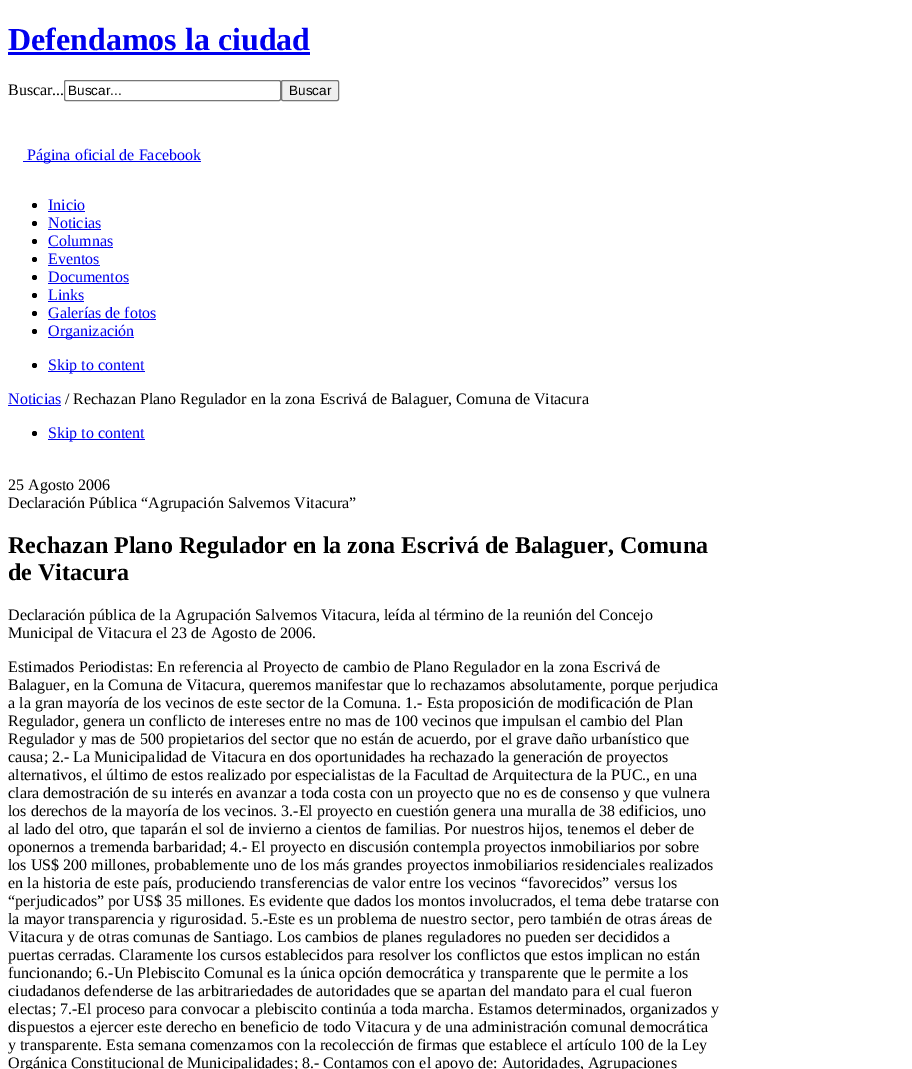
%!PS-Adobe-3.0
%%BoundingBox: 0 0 912 1069
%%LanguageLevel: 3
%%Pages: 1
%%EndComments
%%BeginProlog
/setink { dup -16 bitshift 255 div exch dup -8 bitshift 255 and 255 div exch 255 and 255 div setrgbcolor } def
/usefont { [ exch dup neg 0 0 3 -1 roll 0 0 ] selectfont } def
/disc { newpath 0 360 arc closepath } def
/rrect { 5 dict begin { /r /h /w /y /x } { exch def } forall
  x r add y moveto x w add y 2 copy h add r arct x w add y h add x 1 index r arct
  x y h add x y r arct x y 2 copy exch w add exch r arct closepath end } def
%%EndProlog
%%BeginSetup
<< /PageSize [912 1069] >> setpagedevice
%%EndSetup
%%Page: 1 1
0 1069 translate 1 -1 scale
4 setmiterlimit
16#FFFFFF setink
0 0 912 1069 rectfill
/LiberationSerif-Bold 32 usefont
16#0000EE setink
8 50 moveto (Defendamos la ciudad) show
8 52 302 3 rectfill
/LiberationSerif-Regular 16 usefont
16#000000 setink
8 95 moveto (Buscar...) show
16#767676 setink
64.5 80.5 216 20 1.5 rrect stroke
/LiberationSans-Regular 13.5 usefont
16#000000 setink
68 95 moveto (Buscar...) show
16#EFEFEF setink
281.5 80.5 57 20 1.5 rrect gsave fill grestore
16#767676 setink
stroke
16#000000 setink
289 95 moveto (Buscar) show
16#0000EE setink
23 161 178 1 rectfill
/LiberationSerif-Regular 16 usefont
27 160 moveto (Página oficial de Facebook) show
16#000000 setink
34.5 205.5 2.5 disc fill
16#0000EE setink
48 210 moveto (Inicio) show
48 211 37 1 rectfill
16#000000 setink
34.5 223.5 2.5 disc fill
16#0000EE setink
48 228 moveto (Noticias) show
48 229 53 1 rectfill
16#000000 setink
34.5 241.5 2.5 disc fill
16#0000EE setink
48 246 moveto (Columnas) show
48 247 65 1 rectfill
16#000000 setink
34.5 259.5 2.5 disc fill
16#0000EE setink
48 264 moveto (Eventos) show
48 265 52 1 rectfill
16#000000 setink
34.5 277.5 2.5 disc fill
16#0000EE setink
48 282 moveto (Documentos) show
48 283 81 1 rectfill
16#000000 setink
34.5 295.5 2.5 disc fill
16#0000EE setink
48 300 moveto (Links) show
48 301 36 1 rectfill
16#000000 setink
34.5 313.5 2.5 disc fill
16#0000EE setink
48 318 moveto (Galerías de fotos) show
48 319 108 1 rectfill
16#000000 setink
34.5 331.5 2.5 disc fill
16#0000EE setink
48 337 86 1 rectfill
48 336 moveto (Organización) show
16#000000 setink
34.5 365.5 2.5 disc fill
16#0000EE setink
48 371 97 1 rectfill
48 370 moveto (Skip to content) show
8 404 moveto (Noticias) show
8 405 53 1 rectfill
16#000000 setink
65 404 moveto (/ Rechazan Plano Regulador en la zona Escrivá de Balaguer, Comuna de Vitacura) show
34.5 433.5 2.5 disc fill
16#0000EE setink
48 439 97 1 rectfill
48 438 moveto (Skip to content) show
16#000000 setink
8 490 moveto (25 Agosto 2006) show
8 508 moveto (Declaración Pública “Agrupación Salvemos Vitacura”) show
/LiberationSerif-Bold 24 usefont
8 553 moveto (Rechazan Plano Regulador en la zona Escrivá de Balaguer, Comuna) show
8 580 moveto (de Vitacura) show
/LiberationSerif-Regular 16 usefont
[
    [(Declaración pública de la Agrupación Salvemos Vitacura, leída al término de la reunión del Concejo) 8 620]
    [(Municipal de Vitacura el 23 de Agosto de 2006.) 8 638]
    [(Estimados Periodistas: En referencia al Proyecto de cambio de Plano Regulador en la zona Escrivá de) 8 672]
    [(Balaguer, en la Comuna de Vitacura, queremos manifestar que lo rechazamos absolutamente, porque perjudica) 8 690]
    [(a la gran mayoría de los vecinos de este sector de la Comuna. 1.- Esta proposición de modificación de Plan) 8 708]
    [(Regulador, genera un conflicto de intereses entre no mas de 100 vecinos que impulsan el cambio del Plan) 8 726]
    [(Regulador y mas de 500 propietarios del sector que no están de acuerdo, por el grave daño urbanístico que) 8 744]
    [(causa; 2.- La Municipalidad de Vitacura en dos oportunidades ha rechazado la generación de proyectos) 8 762]
    [(alternativos, el último de estos realizado por especialistas de la Facultad de Arquitectura de la PUC., en una) 8 780]
    [(clara demostración de su interés en avanzar a toda costa con un proyecto que no es de consenso y que vulnera) 8 798]
    [(los derechos de la mayoría de los vecinos. 3.-El proyecto en cuestión genera una muralla de 38 edificios, uno) 8 816]
    [(al lado del otro, que taparán el sol de invierno a cientos de familias. Por nuestros hijos, tenemos el deber de) 8 834]
    [(oponernos a tremenda barbaridad; 4.- El proyecto en discusión contempla proyectos inmobiliarios por sobre) 8 852]
    [(los US$ 200 millones, probablemente uno de los más grandes proyectos inmobiliarios residenciales realizados) 8 870]
    [(en la historia de este país, produciendo transferencias de valor entre los vecinos “favorecidos” versus los) 8 888]
    [(“perjudicados” por US$ 35 millones. Es evidente que dados los montos involucrados, el tema debe tratarse con) 8 906]
    [(la mayor transparencia y rigurosidad. 5.-Este es un problema de nuestro sector, pero también de otras áreas de) 8 924]
    [(Vitacura y de otras comunas de Santiago. Los cambios de planes reguladores no pueden ser decididos a) 8 942]
    [(puertas cerradas. Claramente los cursos establecidos para resolver los conflictos que estos implican no están) 8 960]
    [(funcionando; 6.-Un Plebiscito Comunal es la única opción democrática y transparente que le permite a los) 8 978]
    [(ciudadanos defenderse de las arbitrariedades de autoridades que se apartan del mandato para el cual fueron) 8 996]
    [(electas; 7.-El proceso para convocar a plebiscito continúa a toda marcha. Estamos determinados, organizados y) 8 1014]
    [(dispuestos a ejercer este derecho en beneficio de todo Vitacura y de una administración comunal democrática) 8 1032]
    [(y transparente. Esta semana comenzamos con la recolección de firmas que establece el artículo 100 de la Ley) 8 1050]
    [(Orgánica Constitucional de Municipalidades; 8.- Contamos con el apoyo de: Autoridades, Agrupaciones) 8 1068]
] { aload pop moveto show } forall
showpage
%%EOF
